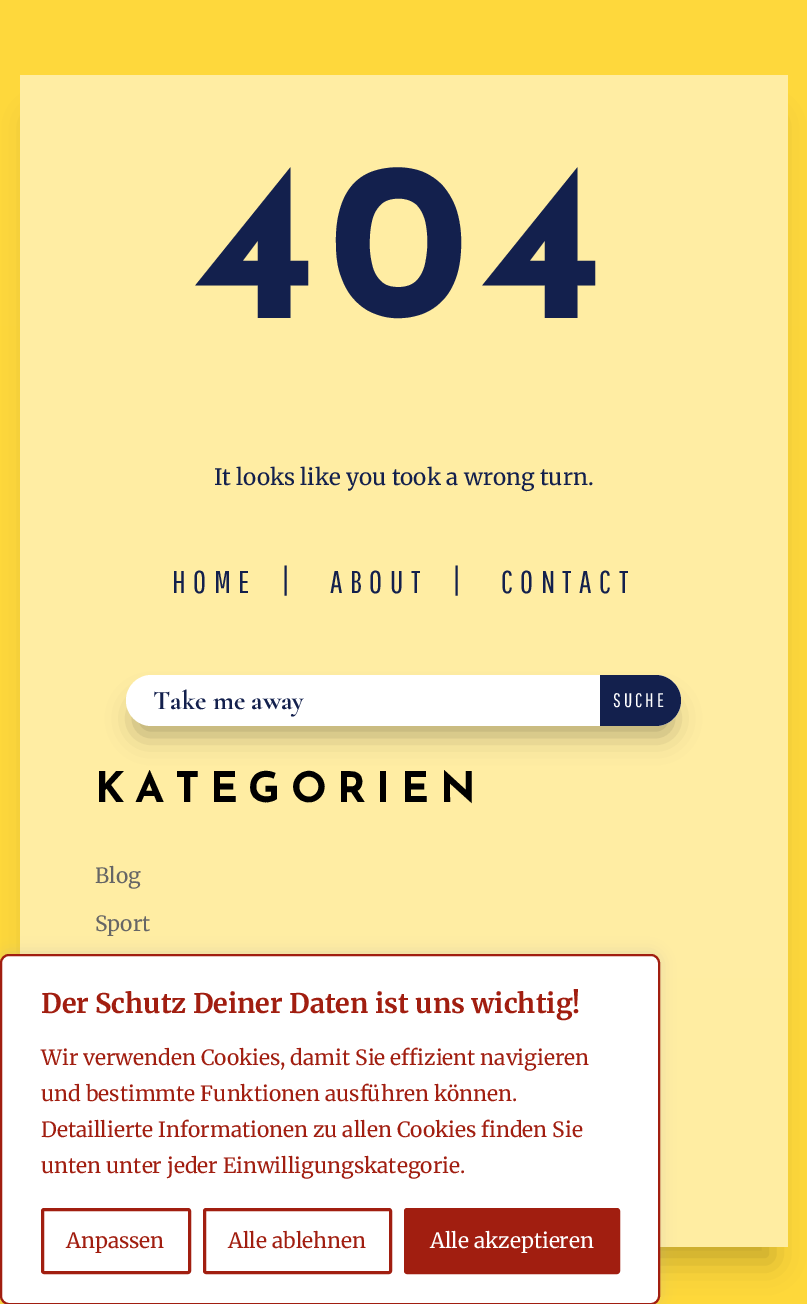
%!PS-Adobe-3.0
%%BoundingBox: 0 0 807 1304
%%LanguageLevel: 3
%%Pages: 1
%%EndComments
%%BeginProlog
/setink { dup -16 bitshift 255 div exch dup -8 bitshift 255 and 255 div exch 255 and 255 div setrgbcolor } def
/usefont { [ exch dup neg 0 0 3 -1 roll 0 0 ] selectfont } def
/setalpha { dup .setfillconstantalpha .setstrokeconstantalpha } def
/rrect { 5 dict begin { /r /h /w /y /x } { exch def } forall
  x r add y moveto x w add y 2 copy h add r arct x w add y h add x 1 index r arct
  x y h add x y r arct x y 2 copy exch w add exch r arct closepath end } def
/softshadow { 12 dict begin { /a /b /q /h /w /y /x } { exch def } forall gsave /was 0 def
  9 -2 -9 { dup b mul 4 div /e exch def 1 sub .425 mul 2.718 exch exp 1 add a .99 .min exch div /now exch def
    1 1 now sub 1 was sub div sub setalpha /was now def
    w h .min e 2 mul add 0 gt { x e sub y e sub w e 2 mul add h e 2 mul add
      q e add b .6 mul add w h .min 2 div e add .min 0 .max rrect fill } if } for grestore end } def
%%EndProlog
%%BeginSetup
<< /PageSize [807 1304] /PageUsesTransparency true >> setpagedevice
%%EndSetup
%%Page: 1 1
0 .pushpdf14devicefilter
0 1304 translate 1 -1 scale
4 setmiterlimit
16#FFFFFF setink
0 0 807 1304 rectfill
gsave 0 0 moveto 807 0 lineto 807 1304 lineto 0 1304 lineto closepath clip newpath
<< /ShadingType 2 /ColorSpace /DeviceRGB /Coords [403 0 404 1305] /Extend [true true] /Function << /FunctionType 2 /Domain [0 1] /C0 [0.996 0.847 0.235] /C1 [0.996 0.847 0.227] /N 1 >> >> shfill grestore
gsave
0 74 moveto 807 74 lineto 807 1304 lineto 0 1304 lineto closepath 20 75 moveto 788 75 lineto 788 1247 lineto 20 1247 lineto closepath eoclip newpath
16#000000 setink
35 120 738 1142 0 15 0.22 softshadow
grestore
0.53 setalpha
20 75 768 1172 rectfill
/JosefinSans-Bold 225 usefont
1 setalpha
16#13204D setink
193 318 moveto 10.5 0 (404) ashow
/Merriweather-Regular 22.5 usefont
214 485 moveto (It looks like you took a wrong turn.) show
/PathwayGothicOne-Regular 31.5 usefont
172 593 moveto 7.5 0 (HOME) ashow
/Merriweather-Light 31.5 usefont
279 593 moveto 15 0 (|) ashow
/PathwayGothicOne-Regular 31.5 usefont
330 593 moveto 7.5 0 (ABOUT) ashow
/Merriweather-Light 31.5 usefont
450 593 moveto 15 0 (|) ashow
/PathwayGothicOne-Regular 31.5 usefont
501 593 moveto 7.5 0 (CONTACT) ashow
16#000000 setink
135 702 537 33 16.5 13.5 0.3 softshadow
16#FFFFFF setink
126 675 555 51 25.5 rrect fill
/CormorantGaramond-Bold 27 usefont
16#13204D setink
153 709 moveto (Take me away) show
600 675 moveto 655.5 675 lineto 669.5 675 681 686.5 681 700.5 curveto 681 714.5 669.5 726 655.5 726 curveto 600 726 lineto closepath fill
/PathwayGothicOne-Regular 19.5 usefont
16#FFFFFF setink
613 707 moveto 3 0 (SUCHE) ashow
/JosefinSans-Bold 42 usefont
16#000000 setink
95 802 moveto 10.5 0 (KATEGORIEN) ashow
/Merriweather-Regular 21 usefont
16#666666 setink
95 883 moveto (Blog) show
95 931 moveto (Sport) show
16#ACABAB setink
0 953 660 351 9 7.5 0.3 softshadow
16#FFFFFF setink
1 955 658 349 8 rrect gsave fill grestore
16#A11E10 setink
2 setlinewidth
stroke
/Merriweather-Bold 27 usefont
41 1013 moveto (Der Schutz Deiner Daten ist uns wichtig!) show
/Merriweather-Regular 21 usefont
[
    [(Wir verwenden Cookies, damit Sie effizient navigieren) 41 1065]
    [(und bestimmte Funktionen ausführen können.) 41 1101]
    [(Detaillierte Informationen zu allen Cookies finden Sie) 41 1137]
    [(unten unter jeder Einwilligungskategorie.) 41 1173]
] { aload pop moveto show } forall
3 setlinewidth
42.5 1209.5 147 63 1.5 rrect stroke
66 1248 moveto (Anpassen) show
204.5 1209.5 186 63 1.5 rrect stroke
228 1248 moveto (Alle ablehnen) show
405.5 1209.5 213 63 1.5 rrect gsave fill grestore
stroke
16#FFFFFF setink
430 1248 moveto (Alle akzeptieren) show
.poppdf14devicefilter showpage
%%EOF
